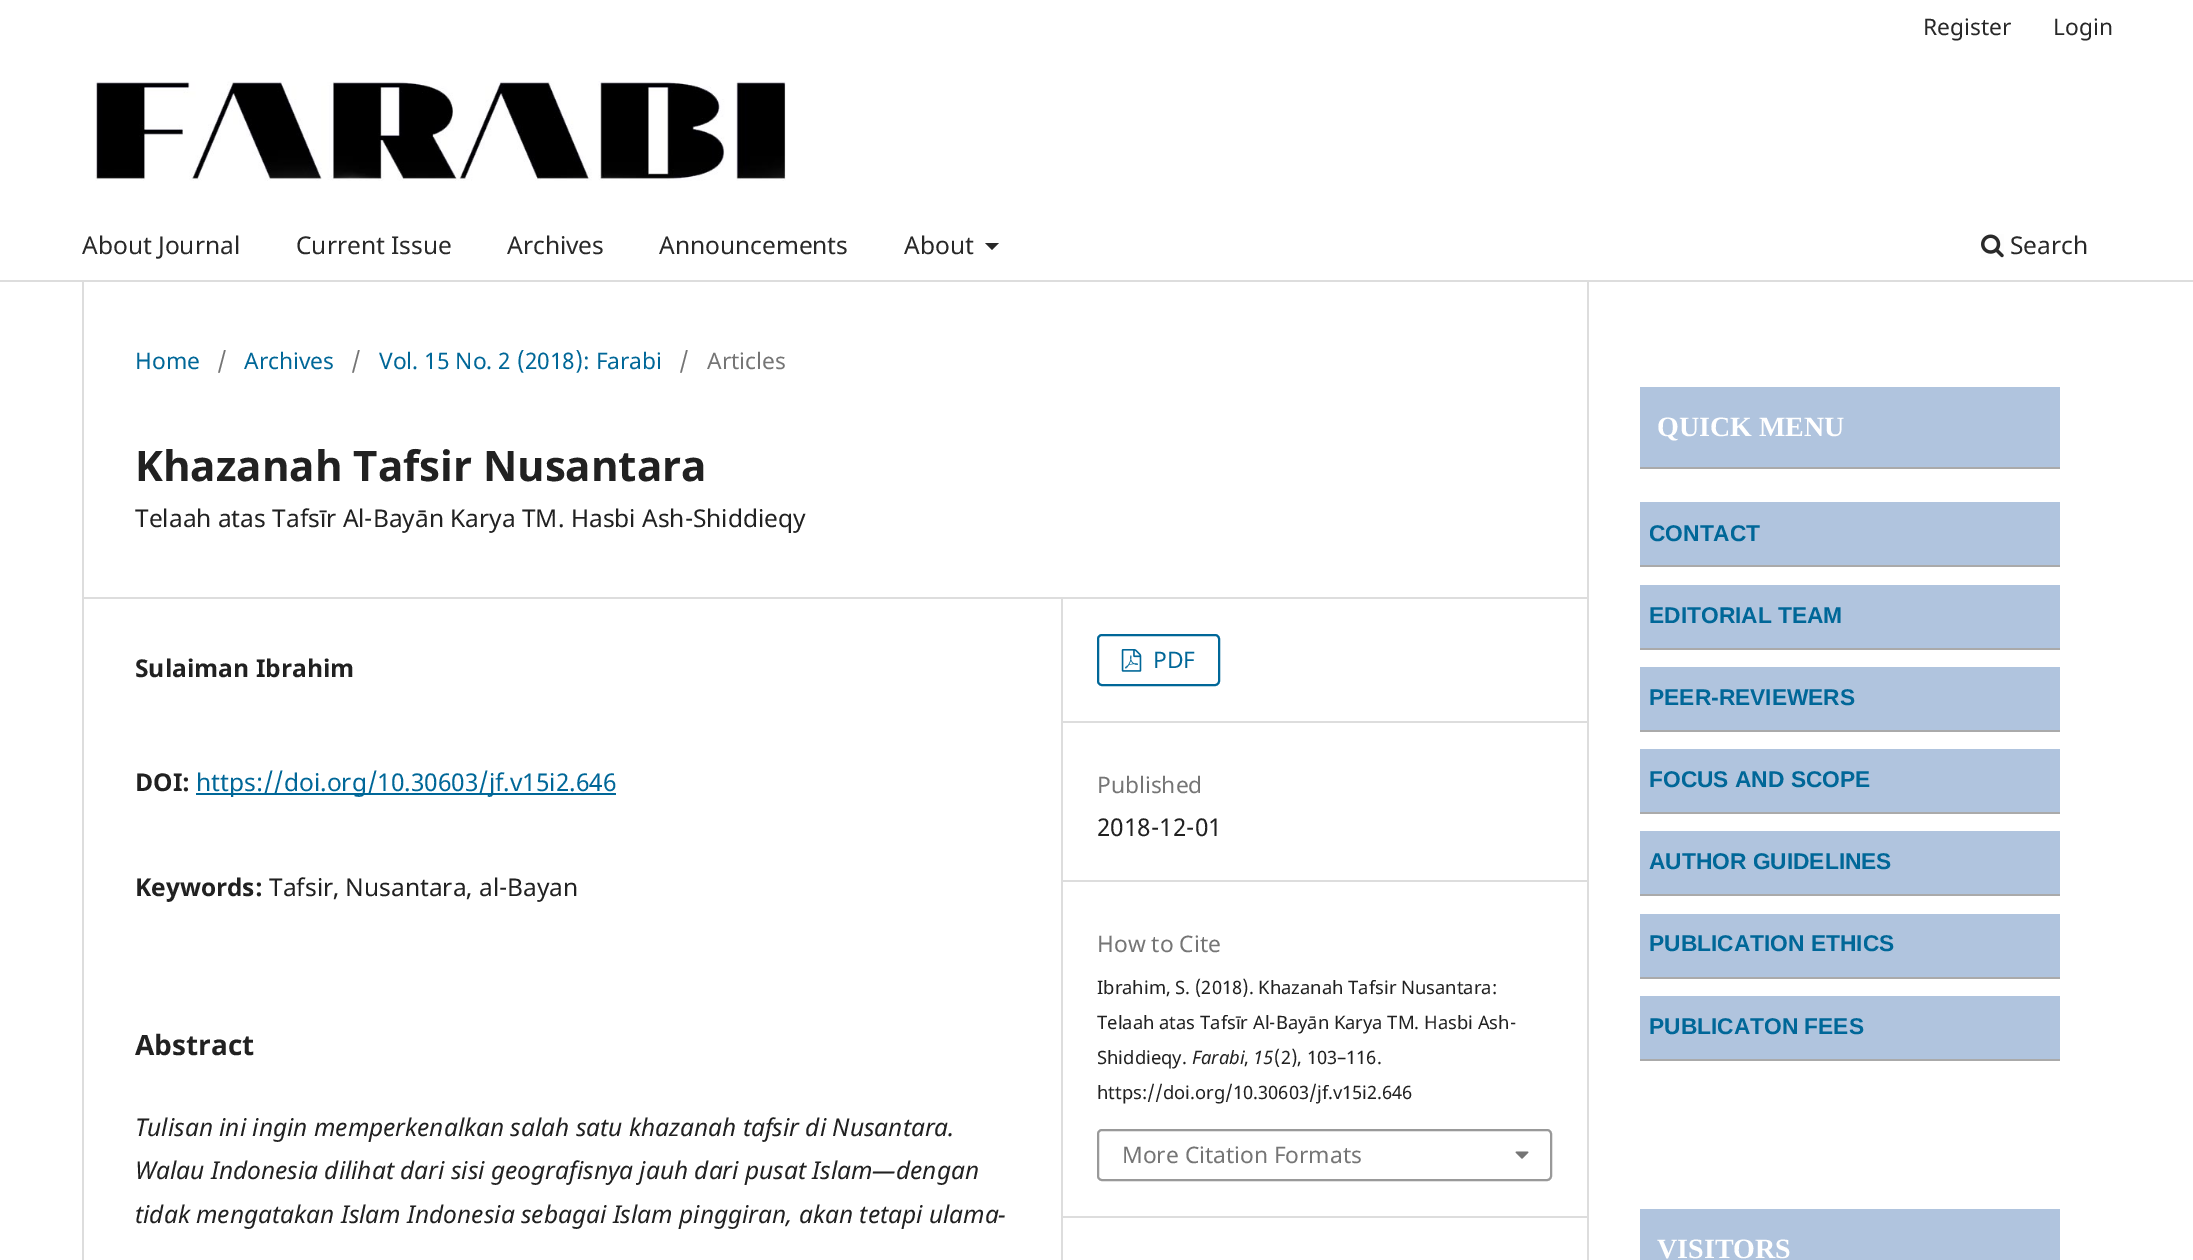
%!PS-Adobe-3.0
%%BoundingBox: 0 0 2193 1260
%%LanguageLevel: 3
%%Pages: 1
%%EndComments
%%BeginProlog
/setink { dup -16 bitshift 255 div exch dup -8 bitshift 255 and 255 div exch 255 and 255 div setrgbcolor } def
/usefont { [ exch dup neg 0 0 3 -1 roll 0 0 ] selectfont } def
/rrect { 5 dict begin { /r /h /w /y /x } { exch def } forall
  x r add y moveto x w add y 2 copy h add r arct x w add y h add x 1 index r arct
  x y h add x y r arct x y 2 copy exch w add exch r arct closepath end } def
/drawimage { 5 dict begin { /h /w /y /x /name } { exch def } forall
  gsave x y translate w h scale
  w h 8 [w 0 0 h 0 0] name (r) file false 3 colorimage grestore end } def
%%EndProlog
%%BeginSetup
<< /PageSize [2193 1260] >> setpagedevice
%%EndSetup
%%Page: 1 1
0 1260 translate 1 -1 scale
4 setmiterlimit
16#FFFFFF setink
0 0 2193 1260 rectfill
16#DDDDDD setink
0 280 2193 2 rectfill
/NotoSans-Regular 22.75 usefont
16#282828 setink
1923 35 moveto (Register) show
2053 35 moveto (Login) show
/NotoSans-Regular 24.5 usefont
[
    [(About Journal) 82 254]
    [(Current Issue) 296 254]
    [(Archives) 507 254]
    [(Announcements) 659 254]
    [(About) 904 254]
] { aload pop moveto show } forall
985 243 moveto 999 243 lineto 992 250 lineto closepath fill
(img1.raw) 1981 234 23 24 drawimage
2010 254 moveto (Search) show
(img2.raw) 95 81 691 100 drawimage
16#DDDDDD setink
82 597 1505 2 rectfill
82 282 2 978 rectfill
/NotoSans-Regular 22.75 usefont
16#006798 setink
135 369 moveto (Home) show
16#757575 setink
217 369 moveto (/) show
16#006798 setink
244 369 moveto (Archives) show
16#757575 setink
351 369 moveto (/) show
16#006798 setink
379 369 moveto (Vol. 15 No. 2 \(2018\): Farabi) show
16#757575 setink
679 369 moveto (/) show
707 369 moveto (Articles) show
/NotoSans-Bold 42 usefont
16#212121 setink
135 481 moveto (Khazanah Tafsir Nusantara) show
/NotoSans-Regular 24.5 usefont
135 527 moveto (Telaah atas Tafsīr Al-Bayān Karya TM. Hasbi Ash-Shiddieqy) show
16#DDDDDD setink
1061 599 2 661 rectfill
/NotoSans-Bold 24.5 usefont
16#212121 setink
135 677 moveto (Sulaiman Ibrahim) show
135 791 moveto (DOI:) show
16#006798 setink
196 793 420 2 rectfill
/NotoSans-Regular 24.5 usefont
196 791 moveto (https://doi.org/10.30603/jf.v15i2.646) show
/NotoSans-Bold 24.5 usefont
16#212121 setink
135 896 moveto (Keywords:) show
/NotoSans-Regular 24.5 usefont
269 896 moveto (Tafsir, Nusantara, al-Bayan) show
/NotoSans-Bold 28 usefont
135 1055 moveto (Abstract) show
/NotoSans-Italic 24.5 usefont
[
    [(Tulisan ini ingin memperkenalkan salah satu khazanah tafsir di Nusantara.) 135 1136]
    [(Walau Indonesia dilihat dari sisi geografisnya jauh dari pusat Islam—dengan) 135 1179]
    [(tidak mengatakan Islam Indonesia sebagai Islam pinggiran, akan tetapi ulama-) 135 1223]
] { aload pop moveto show } forall
16#DDDDDD setink
1062 721 525 2 rectfill
16#006798 setink
2 setlinewidth
1098 635 121 50 4 rrect stroke
(img3.raw) 1121 649 21 23 drawimage
/NotoSans-Regular 22.75 usefont
1153 668 moveto (PDF) show
16#DDDDDD setink
1062 880 525 2 rectfill
16#757575 setink
1097 793 moveto (Published) show
/NotoSans-Regular 24.5 usefont
16#212121 setink
1097 836 moveto (2018-12-01) show
16#DDDDDD setink
1062 1216 525 2 rectfill
/NotoSans-Regular 22.75 usefont
16#757575 setink
1097 952 moveto (How to Cite) show
/NotoSans-Regular 18.4 usefont
16#212121 setink
[
    [(Ibrahim, S. \(2018\). Khazanah Tafsir Nusantara:) 1097 994]
    [(Telaah atas Tafsīr Al-Bayān Karya TM. Hasbi Ash-) 1097 1029]
    [(Shiddieqy.) 1097 1064]
] { aload pop moveto show } forall
/NotoSans-Italic 18.4 usefont
1192 1064 moveto (Farabi) show
/NotoSans-Regular 18.4 usefont
1244 1064 moveto (,) show
/NotoSans-Italic 18.4 usefont
1253 1064 moveto (15) show
/NotoSans-Regular 18.4 usefont
1274 1064 moveto (\(2\), 103–116.) show
1097 1099 moveto (https://doi.org/10.30603/jf.v15i2.646) show
16#999999 setink
1098 1130 453 50 4 rrect stroke
/NotoSans-Regular 22.75 usefont
16#757575 setink
1122 1163 moveto (More Citation Formats) show
(img4.raw) 1515 1151 14 8 drawimage
[
    [1587 282 2 978 16#DDDDDD]
    [1640 387 420 80 16#B0C4DE]
    [1640 467 420 2 16#AAAAAA]
] { aload pop setink rectfill } forall
/LiberationSerif-Bold 28 usefont
16#FFFFFF setink
1657 436 moveto (QUICK MENU) show
16#B0C4DE setink
1640 502 420 63 rectfill
16#AAAAAA setink
1640 565 420 2 rectfill
/LiberationSans-Bold 22.75 usefont
16#006798 setink
1649 541 moveto (CONTACT) show
16#B0C4DE setink
1640 585 420 63 rectfill
16#AAAAAA setink
1640 648 420 2 rectfill
16#006798 setink
1649 623 moveto (EDITORIAL TEAM) show
16#B0C4DE setink
1640 667 420 63 rectfill
16#AAAAAA setink
1640 730 420 2 rectfill
16#006798 setink
1649 705 moveto (PEER-REVIEWERS) show
16#B0C4DE setink
1640 749 420 63 rectfill
16#AAAAAA setink
1640 812 420 2 rectfill
16#006798 setink
1649 787 moveto (FOCUS AND SCOPE) show
16#B0C4DE setink
1640 831 420 63 rectfill
16#AAAAAA setink
1640 894 420 2 rectfill
16#006798 setink
1649 869 moveto (AUTHOR GUIDELINES) show
16#B0C4DE setink
1640 914 420 63 rectfill
16#AAAAAA setink
1640 977 420 2 rectfill
16#006798 setink
1649 951 moveto (PUBLICATION ETHICS) show
16#B0C4DE setink
1640 996 420 63 rectfill
16#AAAAAA setink
1640 1059 420 2 rectfill
16#006798 setink
1649 1034 moveto (PUBLICATON FEES) show
16#B0C4DE setink
1640 1209 420 51 rectfill
/LiberationSerif-Bold 28 usefont
16#FFFFFF setink
1657 1258 moveto (VISITORS) show
showpage
%%EOF
